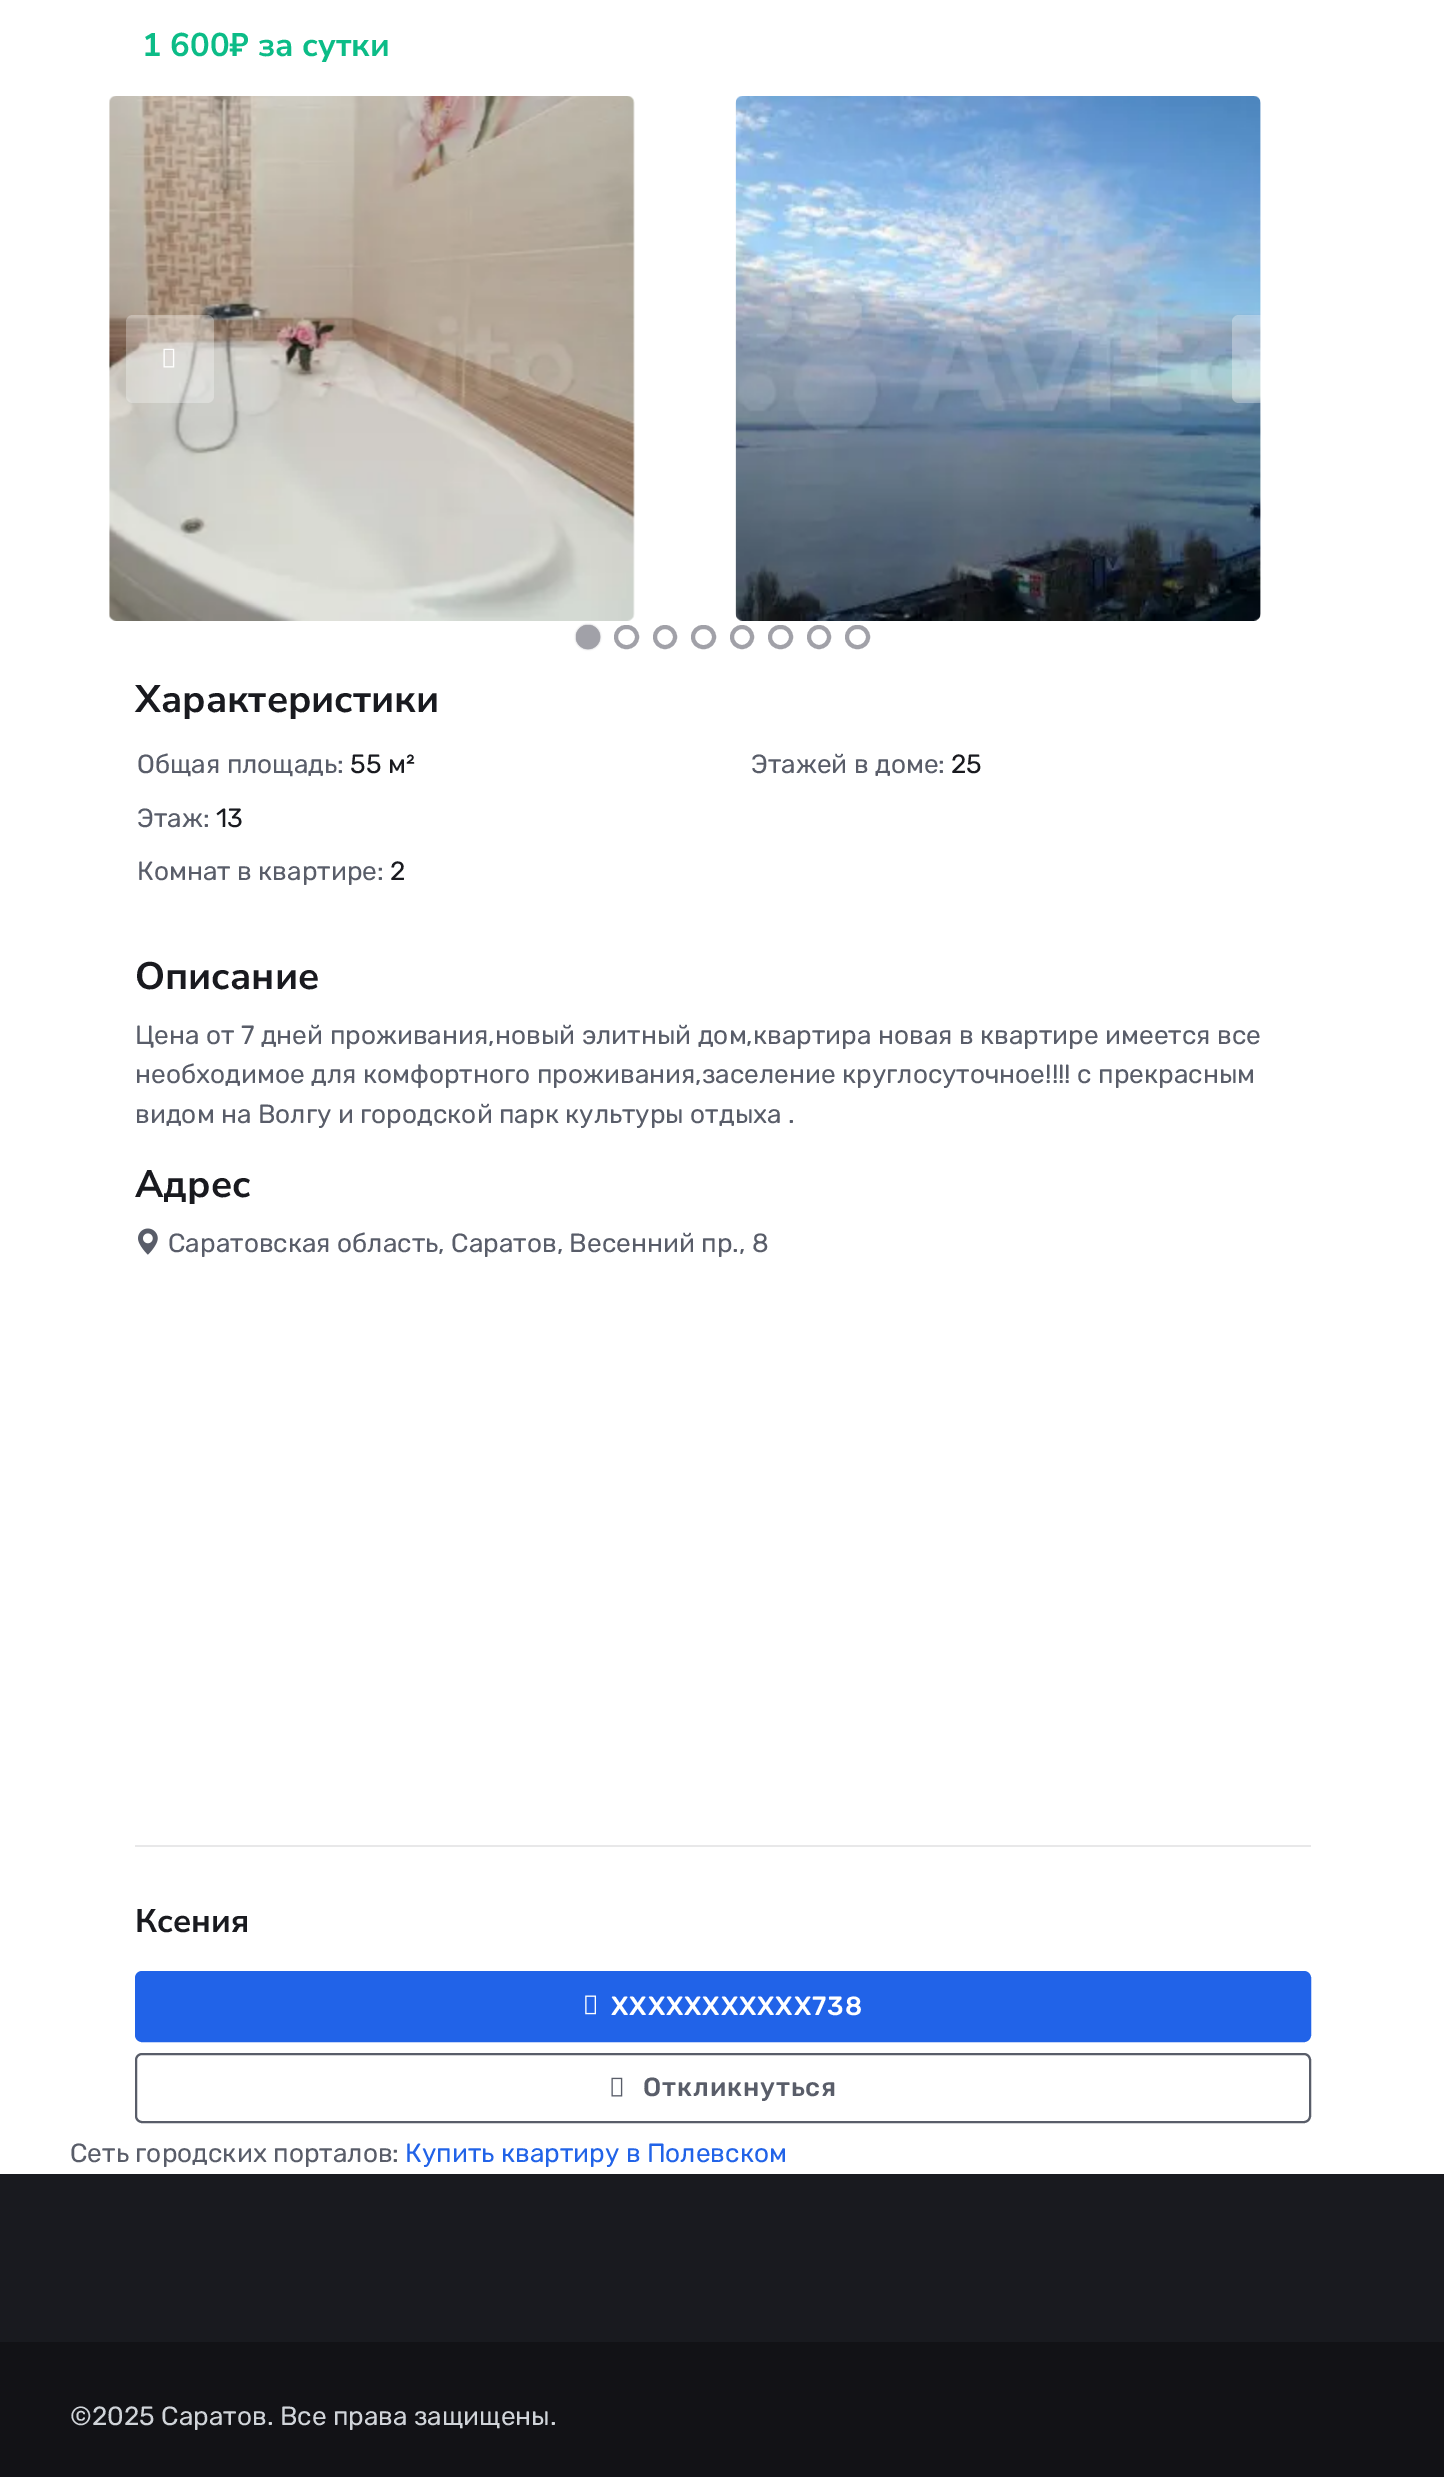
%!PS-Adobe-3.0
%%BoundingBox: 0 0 1444 2477
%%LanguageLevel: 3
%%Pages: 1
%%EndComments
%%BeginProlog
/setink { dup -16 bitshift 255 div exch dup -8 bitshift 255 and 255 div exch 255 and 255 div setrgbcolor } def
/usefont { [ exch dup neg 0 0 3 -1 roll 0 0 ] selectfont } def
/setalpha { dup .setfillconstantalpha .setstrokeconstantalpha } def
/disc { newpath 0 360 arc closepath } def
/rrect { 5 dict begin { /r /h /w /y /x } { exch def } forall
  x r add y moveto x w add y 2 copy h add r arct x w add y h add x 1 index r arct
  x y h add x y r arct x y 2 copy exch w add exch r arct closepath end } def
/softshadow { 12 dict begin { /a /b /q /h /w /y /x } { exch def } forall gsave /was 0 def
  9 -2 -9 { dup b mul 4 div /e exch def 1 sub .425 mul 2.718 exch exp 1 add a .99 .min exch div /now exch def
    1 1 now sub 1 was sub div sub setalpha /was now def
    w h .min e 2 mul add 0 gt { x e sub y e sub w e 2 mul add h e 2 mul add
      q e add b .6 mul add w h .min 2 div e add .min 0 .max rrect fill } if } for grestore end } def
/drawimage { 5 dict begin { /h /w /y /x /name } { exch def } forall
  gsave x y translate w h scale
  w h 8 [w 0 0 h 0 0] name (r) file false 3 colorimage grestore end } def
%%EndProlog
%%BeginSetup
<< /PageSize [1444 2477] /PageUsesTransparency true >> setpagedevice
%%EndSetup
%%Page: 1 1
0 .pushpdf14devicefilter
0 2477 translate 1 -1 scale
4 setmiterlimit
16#FFFFFF setink
0 0 1444 2477 rectfill
/NunitoSans-Bold 32.75 usefont
16#0CBC87 setink
142 56 moveto (1 600₽ за сутки) show
(img1.raw) 109 96 526 525 drawimage
(img2.raw) 735 96 526 525 drawimage
0.3 setalpha
16#FFFFFF setink
126 315 88 88 7 rrect fill
1 setalpha
(img3.raw) 163 348 12 20 drawimage
0.3 setalpha
1232 315 88 88 7 rrect fill
1 setalpha
16#A1A1A8 setink
4 setlinewidth
588 637 10 disc stroke
gsave
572 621 moveto 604 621 lineto 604 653 lineto 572 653 lineto closepath 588 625 moveto 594.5 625 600 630.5 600 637 curveto 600 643.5 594.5 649 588 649 curveto 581.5 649 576 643.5 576 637 curveto 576 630.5 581.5 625 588 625 curveto closepath eoclip newpath
576 625 24 24 12 1 1 softshadow
grestore
588 637 12 disc fill
616 627 21 20 10 rrect stroke
665 637 10 disc stroke
693 627 21 20 10 rrect stroke
742 637 10 disc stroke
770 627 21 20 10 rrect stroke
819 637 10 disc stroke
847 627 21 20 10 rrect stroke
/NunitoSans-Bold 38.25 usefont
16#191A1F setink
135 712 moveto (Характеристики) show
/Rubik-Regular 26.25 usefont
16#595D69 setink
137 773 moveto (Общая площадь:) show
16#191A1F setink
350 773 moveto (55 м²) show
16#595D69 setink
137 827 moveto (Этаж:) show
16#191A1F setink
216 827 moveto (13) show
16#595D69 setink
137 880 moveto (Комнат в квартире:) show
16#191A1F setink
390 880 moveto (2) show
16#595D69 setink
751 773 moveto (Этажей в доме:) show
16#191A1F setink
951 773 moveto (25) show
/NunitoSans-Bold 38.25 usefont
135 989 moveto (Описание) show
/Rubik-Regular 26.25 usefont
16#595D69 setink
[
    [(Цена от 7 дней проживания,новый элитный дом,квартира новая в квартире имеется все) 135 1044]
    [(необходимое для комфортного проживания,заселение круглосуточное!!!! с прекрасным) 135 1083]
    [(видом на Волгу и городской парк культуры отдыха .) 135 1123]
] { aload pop moveto show } forall
/NunitoSans-Bold 38.25 usefont
16#191A1F setink
135 1197 moveto (Адрес) show
(img4.raw) 138 1228 20 27 drawimage
/Rubik-Regular 26.25 usefont
16#595D69 setink
168 1252 moveto (Саратовская область, Саратов, Весенний пр., 8) show
16#E8E8E9 setink
135 1845 1176 2 rectfill
/NunitoSans-Bold 32.75 usefont
16#191A1F setink
135 1932 moveto (Ксения) show
16#2163E8 setink
136 1972 1174 69 6 rrect gsave fill grestore
2 setlinewidth
stroke
(img5.raw) 585 1995 11 20 drawimage
/Rubik-Medium 26.25 usefont
16#FFFFFF setink
611 2015 moveto 0.9 0 (XXXXXXXXXXX738) ashow
16#595D69 setink
136 2054 1174 68 6 rrect stroke
(img6.raw) 611 2077 12 20 drawimage
643 2096 moveto 0.9 0 (Откликнуться) ashow
/Rubik-Regular 26.25 usefont
70 2162 moveto (Сеть городских порталов:) show
16#2163E8 setink
405 2162 moveto (Купить квартиру в Полевском) show
16#191A1F setink
0 2174 1444 168 rectfill
16#121216 setink
0 2342 1444 135 rectfill
16#D0D4D9 setink
70 2425 moveto (©2025 Саратов. Все права защищены.) show
.poppdf14devicefilter showpage
%%EOF
